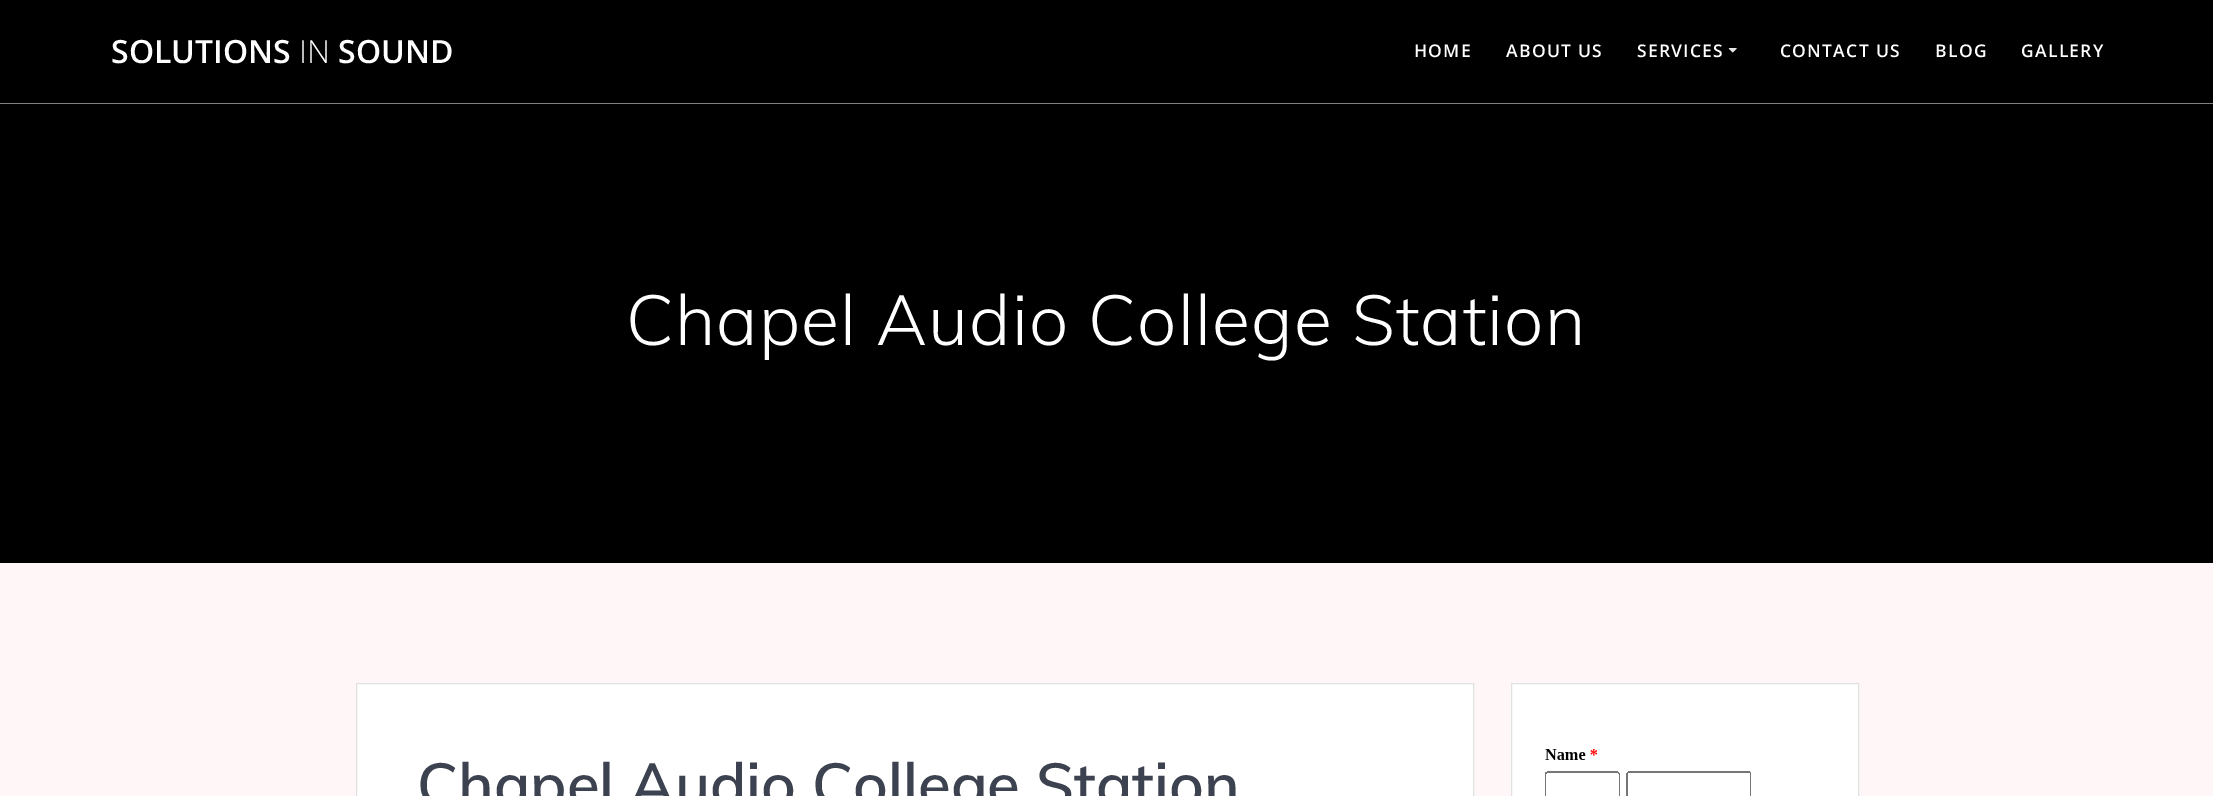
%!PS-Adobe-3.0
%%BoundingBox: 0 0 2213 796
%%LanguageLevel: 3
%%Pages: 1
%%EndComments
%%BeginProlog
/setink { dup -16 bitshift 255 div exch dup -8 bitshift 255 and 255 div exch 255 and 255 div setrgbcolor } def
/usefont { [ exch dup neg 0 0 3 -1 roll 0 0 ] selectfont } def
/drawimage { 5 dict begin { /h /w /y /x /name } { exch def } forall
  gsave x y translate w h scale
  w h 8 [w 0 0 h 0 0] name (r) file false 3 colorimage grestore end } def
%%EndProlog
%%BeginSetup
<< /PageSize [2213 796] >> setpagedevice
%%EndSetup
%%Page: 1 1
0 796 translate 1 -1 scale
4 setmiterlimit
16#FFF7F7 setink
0 0 2213 796 rectfill
16#000000 setink
0 0 2213 563 rectfill
16#808080 setink
0 103 2213 1 rectfill
/OpenSans-SemiBold 32 usefont
16#FFFFFF setink
111 63 moveto (SOLUTIONS) show
/OpenSans-Light 32 usefont
299 63 moveto (IN) show
/OpenSans-SemiBold 32 usefont
338 63 moveto (SOUND) show
/OpenSans-SemiBold 17.5 usefont
1414 57 moveto 1.25 0 (HOME) ashow
1506 57 moveto 1.25 0 (ABOUT US) ashow
1637 57 moveto 1.25 0 (SERVICES) ashow
(img1.raw) 1728 48 9 5 drawimage
1780 57 moveto 1.25 0 (CONTACT US) ashow
1935 57 moveto 1.25 0 (BLOG) ashow
2021 57 moveto 1.25 0 (GALLERY) ashow
/Muli-Light 70 usefont
626 345 moveto 1.1 0 (Chapel Audio College Station) ashow
356.5 683.5 moveto 1473.5 683.5 lineto 1473.5 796.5 lineto 356.5 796.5 lineto closepath gsave fill grestore
16#E0E1E1 setink
stroke
/Muli-SemiBold 60 usefont
16#3C424F setink
417 806 moveto (Chapel Audio College Station) show
16#FFFFFF setink
1511.5 683.5 moveto 1858.5 683.5 lineto 1858.5 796.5 lineto 1511.5 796.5 lineto closepath gsave fill grestore
16#E0E1E1 setink
stroke
(img2.raw) 1545 749 206 47 drawimage
showpage
%%EOF
